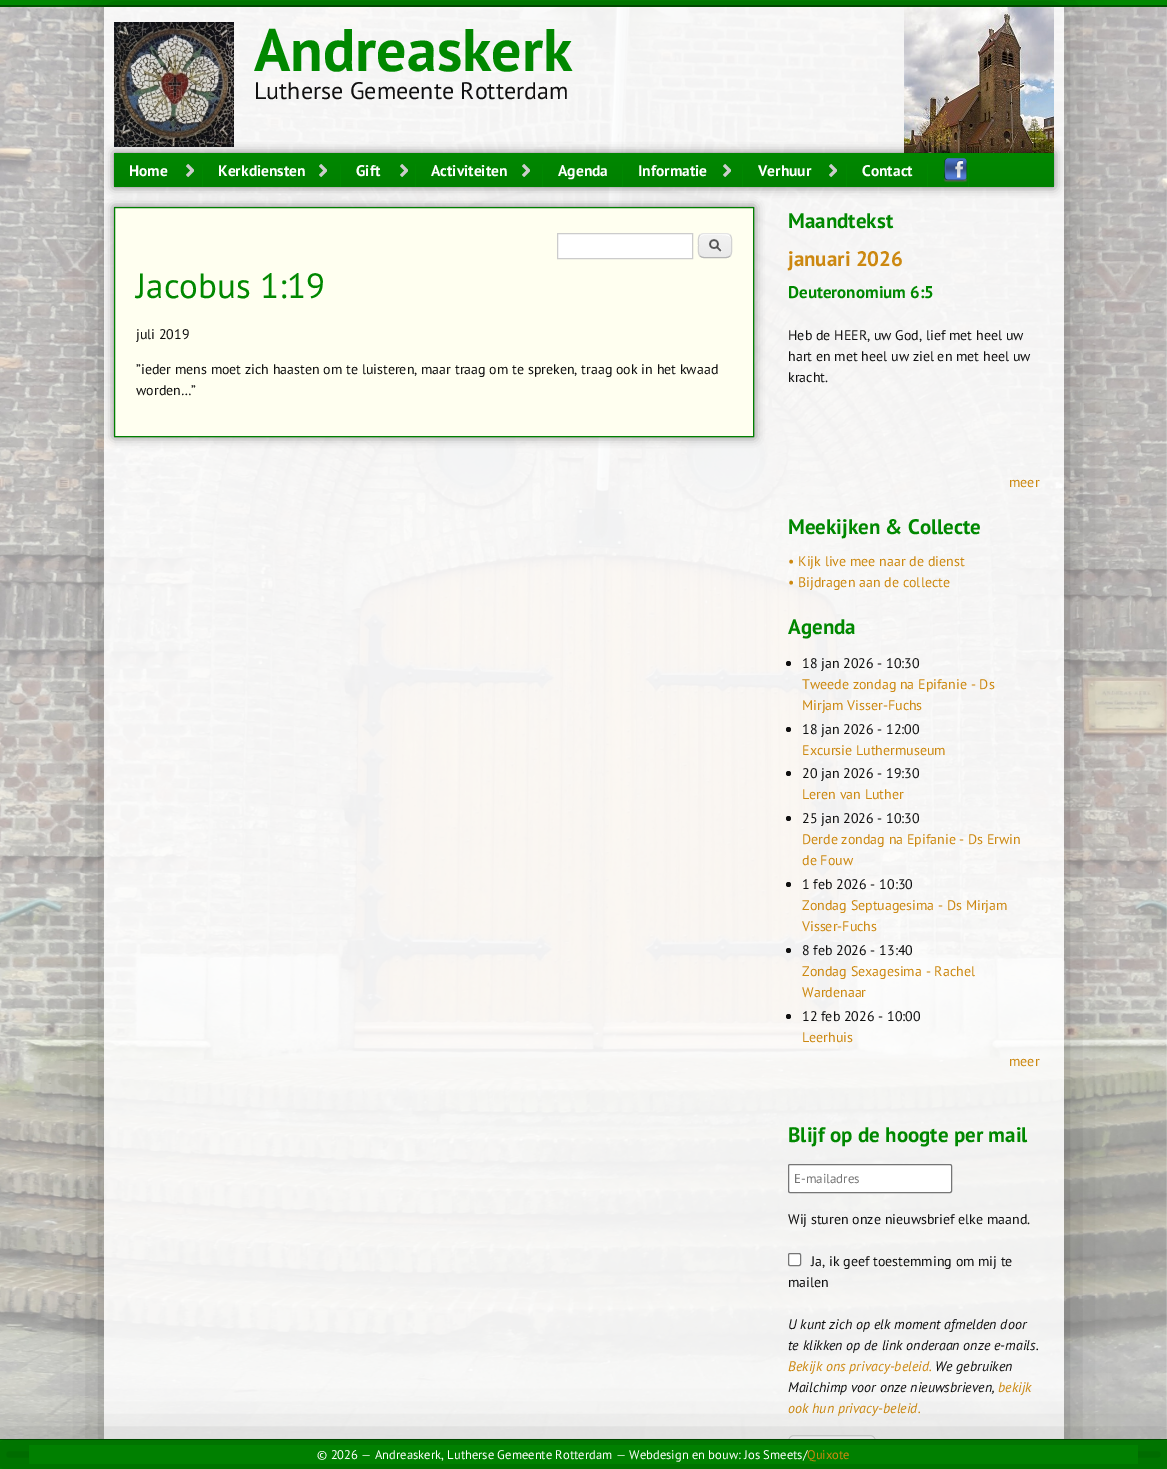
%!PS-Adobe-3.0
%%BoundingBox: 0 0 1167 1469
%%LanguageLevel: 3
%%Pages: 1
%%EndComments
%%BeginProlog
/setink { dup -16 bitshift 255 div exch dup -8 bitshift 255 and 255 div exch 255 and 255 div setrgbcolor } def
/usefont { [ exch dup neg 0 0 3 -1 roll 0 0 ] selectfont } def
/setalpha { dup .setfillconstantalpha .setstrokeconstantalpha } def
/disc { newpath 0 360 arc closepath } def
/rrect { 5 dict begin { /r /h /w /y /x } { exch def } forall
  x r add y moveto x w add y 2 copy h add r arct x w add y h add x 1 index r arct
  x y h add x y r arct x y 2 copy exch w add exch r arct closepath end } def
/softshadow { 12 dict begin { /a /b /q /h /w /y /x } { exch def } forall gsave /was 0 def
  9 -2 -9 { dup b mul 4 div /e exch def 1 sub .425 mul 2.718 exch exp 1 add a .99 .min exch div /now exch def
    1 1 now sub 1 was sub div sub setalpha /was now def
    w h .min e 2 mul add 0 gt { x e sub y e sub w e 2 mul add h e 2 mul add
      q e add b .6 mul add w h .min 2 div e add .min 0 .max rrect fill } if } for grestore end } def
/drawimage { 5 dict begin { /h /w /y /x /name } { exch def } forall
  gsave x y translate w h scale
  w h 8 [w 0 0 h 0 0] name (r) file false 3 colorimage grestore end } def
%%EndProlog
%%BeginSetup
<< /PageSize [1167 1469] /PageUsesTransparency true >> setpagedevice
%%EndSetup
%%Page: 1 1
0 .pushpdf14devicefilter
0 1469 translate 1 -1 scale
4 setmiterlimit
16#FFFFFF setink
0 0 1167 1469 rectfill
(img1.raw) 0 7 1167 1432 drawimage
16#008800 setink
0 0 1167 5 rectfill
16#005500 setink
0 5 1167 2 rectfill
gsave
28 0 moveto 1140 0 lineto 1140 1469 lineto 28 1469 lineto closepath 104 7 moveto 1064 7 lineto 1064 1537 lineto 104 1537 lineto closepath eoclip newpath
16#000000 setink
104 7 960 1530 0 25 0.3 softshadow
grestore
0.85 setalpha
16#FFFFFF setink
104 7 960 1432 rectfill
1 setalpha
(img2.raw) 904 7 150 146 drawimage
(img3.raw) 114 22 120 125 drawimage
/PTSans-Bold 60 usefont
16#008800 setink
254 71 moveto (Andreaskerk) show
/PTSans-Regular 24 usefont
16#101010 setink
254 99 moveto (Lutherse Gemeente Rotterdam) show
16#000000 setink
114 153 940 34 0 5 0.5 softshadow
gsave 114 153 moveto 1054 153 lineto 1054 187 lineto 114 187 lineto closepath clip newpath
<< /ShadingType 2 /ColorSpace /DeviceRGB /Coords [584 153 584 187] /Extend [true true] /Function << /FunctionType 2 /Domain [0 1] /C0 [0 0.533 0] /C1 [0 0.502 0] /N 1 >> >> shfill grestore
16#008800 setink
202 164 1 23 rectfill
(img4.raw) 186 164 8 13 drawimage
/PTSans-Bold 15.5 usefont
16#FFFFFF setink
129 176 moveto (Home) show
16#008800 setink
340 164 1 23 rectfill
(img4.raw) 319 164 8 13 drawimage
16#FFFFFF setink
218 176 moveto (Kerkdiensten) show
16#008800 setink
415 164 1 23 rectfill
(img4.raw) 400 164 8 13 drawimage
16#FFFFFF setink
356 176 moveto (Gift) show
16#008800 setink
542 164 1 23 rectfill
(img4.raw) 522 164 8 13 drawimage
16#FFFFFF setink
431 176 moveto (Activiteiten) show
16#008800 setink
622 164 1 23 rectfill
16#FFFFFF setink
558 176 moveto (Agenda) show
16#008800 setink
742 164 1 23 rectfill
(img4.raw) 723 164 8 13 drawimage
16#FFFFFF setink
638 176 moveto (Informatie) show
16#008800 setink
846 164 1 23 rectfill
(img4.raw) 829 164 8 13 drawimage
16#FFFFFF setink
758 176 moveto (Verhuur) show
16#008800 setink
927 164 1 23 rectfill
16#FFFFFF setink
862 176 moveto (Contact) show
16#008800 setink
968 164 1 23 rectfill
(img5.raw) 943 158 25 25 drawimage
16#000000 setink
114 207 640 230 0 5 0.5 softshadow
16#FFFFF0 setink
114.5 207.5 moveto 753.5 207.5 lineto 753.5 436.5 lineto 114.5 436.5 lineto closepath gsave fill grestore
16#008000 setink
stroke
16#FFFFFF setink
557.5 233.5 moveto 692.5 233.5 lineto 692.5 258.5 lineto 557.5 258.5 lineto closepath gsave fill grestore
16#CCCCCC setink
stroke
(img6.raw) 698 234 34 24 drawimage
16#FFFFFF setink
704 235 moveto 722 235 lineto 729.5 235 731 236.5 731 241 curveto 731 234 728.5 234 722.5 234 curveto 707.5 234 lineto 701 234 699 234.5 699 241 curveto 699 238 700 235 704 235 curveto closepath 731 251.5 moveto 731 253 lineto closepath 699 253 moveto 699 252 lineto closepath eofill
16#E4E4E4 setink
700 235 moveto 701 234 702.5 233.5 704 233.5 curveto 726 233.5 lineto 727.5 233.5 729 234 730 235 curveto stroke
16#D2D2D2 setink
730 235 moveto 732.5 237.5 731.5 242.5 731.5 245.5 curveto 731.5 248.5 732.5 253.5 730 256 curveto stroke
16#B4B4B4 setink
730 256 moveto 729 257 727.5 257.5 726 257.5 curveto 704 257.5 lineto 702.5 257.5 701 257 700 256 curveto stroke
16#D2D2D2 setink
700 256 moveto 697.5 253.5 698.5 248.5 698.5 245.5 curveto 698.5 242.5 697.5 237.5 700 235 curveto stroke
/PTSans-Regular 35 usefont
16#008800 setink
136 298 moveto (Jacobus 1:19) show
/PTSans-Regular 14 usefont
16#101010 setink
[
    [(juli 2019) 136 339]
    [(”ieder mens moet zich haasten om te luisteren, maar traag om te spreken, traag ook in het kwaad) 136 374]
    [(worden…”) 136 395]
] { aload pop moveto show } forall
/PTSans-Bold 21 usefont
16#008800 setink
788 228 moveto (Maandtekst) show
16#CC8810 setink
788 266 moveto (januari 2026) show
/PTSans-Bold 17 usefont
16#008800 setink
788 298 moveto (Deuteronomium 6:5) show
/PTSans-Regular 14 usefont
16#101010 setink
[
    [(Heb de HEER, uw God, lief met heel uw) 788 340]
    [(hart en met heel uw ziel en met heel uw) 788 361]
    [(kracht.) 788 382]
] { aload pop moveto show } forall
16#CC8810 setink
1009 487 moveto (meer) show
/PTSans-Bold 21 usefont
16#008800 setink
788 534 moveto (Meekijken & Collecte) show
/PTSans-Regular 14 usefont
16#CC8810 setink
788 566 moveto (• Kijk live mee naar de dienst) show
788 587 moveto (• Bijdragen aan de collecte) show
/PTSans-Bold 21 usefont
16#008800 setink
788 634 moveto (Agenda) show
16#101010 setink
788.5 663.5 2.5 disc fill
/PTSans-Regular 14 usefont
802 668 moveto (18 jan 2026 - 10:30) show
16#CC8810 setink
802 689 moveto (Tweede zondag na Epifanie - Ds) show
802 710 moveto (Mirjam Visser-Fuchs) show
16#101010 setink
788.5 729.5 2.5 disc fill
802 734 moveto (18 jan 2026 - 12:00) show
16#CC8810 setink
802 755 moveto (Excursie Luthermuseum) show
16#101010 setink
788.5 773.5 2.5 disc fill
802 778 moveto (20 jan 2026 - 19:30) show
16#CC8810 setink
802 799 moveto (Leren van Luther) show
16#101010 setink
788.5 818.5 2.5 disc fill
802 823 moveto (25 jan 2026 - 10:30) show
16#CC8810 setink
802 844 moveto (Derde zondag na Epifanie - Ds Erwin) show
802 865 moveto (de Fouw) show
16#101010 setink
788.5 884.5 2.5 disc fill
802 889 moveto (1 feb 2026 - 10:30) show
16#CC8810 setink
802 910 moveto (Zondag Septuagesima - Ds Mirjam) show
802 931 moveto (Visser-Fuchs) show
16#101010 setink
788.5 950.5 2.5 disc fill
802 955 moveto (8 feb 2026 - 13:40) show
16#CC8810 setink
802 976 moveto (Zondag Sexagesima - Rachel) show
802 997 moveto (Wardenaar) show
16#101010 setink
788.5 1016.5 2.5 disc fill
802 1021 moveto (12 feb 2026 - 10:00) show
16#CC8810 setink
802 1042 moveto (Leerhuis) show
1009 1066 moveto (meer) show
/PTSans-Bold 21 usefont
16#008800 setink
788 1142 moveto (Blijf op de hoogte per mail) show
16#FFFFFF setink
788.5 1164.5 163 28 1.5 rrect gsave fill grestore
16#767676 setink
stroke
/PTSans-Regular 13 usefont
16#757575 setink
794 1183 moveto (E-mailadres) show
/PTSans-Regular 14 usefont
16#101010 setink
788 1224 moveto (Wij sturen onze nieuwsbrief elke maand.) show
16#FFFFFF setink
788.5 1253.5 12 12 1.5 rrect gsave fill grestore
16#767676 setink
stroke
16#101010 setink
811 1266 moveto (Ja, ik geef toestemming om mij te) show
788 1287 moveto (mailen) show
/PTSans-Italic 14 usefont
788 1329 moveto (U kunt zich op elk moment afmelden door) show
788 1350 moveto (te klikken op de link onderaan onze e-mails.) show
16#CC8810 setink
788 1371 moveto (Bekijk ons privacy-beleid.) show
16#101010 setink
935 1371 moveto (We gebruiken) show
788 1392 moveto (Mailchimp voor onze nieuwsbrieven,) show
16#CC8810 setink
998 1392 moveto (bekijk) show
788 1413 moveto (ook hun privacy-beleid.) show
gsave
788 1435 88 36 6 rrect clip newpath
gsave 788 1436 moveto 876 1436 lineto 876 1439 lineto 788 1439 lineto closepath clip newpath
<< /ShadingType 2 /ColorSpace /DeviceRGB /Coords [832 1436 832 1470] /Extend [true true] /Function << /FunctionType 2 /Domain [0 1] /C0 [1 1 1] /C1 [0.89 0.89 0.89] /N 1 >> >> shfill grestore
grestore
16#FFFFFF setink
794 1437 moveto 870 1437 lineto 873 1437 875 1439 875 1442 curveto 875 1433 863 1436 857 1436 curveto 807 1436 lineto 801 1436 789 1433 789 1442 curveto 789 1439 791 1437 794 1437 curveto closepath fill
16#DBDBDB setink
788.5 1435.5 87 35 5.5 rrect stroke
16#008800 setink
0 1440 1167 29 rectfill
16#005500 setink
0 1439 1167 1 rectfill
16#000000 setink
0 1445 1167 19 0 25 0.3 softshadow
16#008000 setink
29 1445 1109 19 rectfill
/PTSans-Regular 12.6 usefont
16#FFFFFF setink
317 1459 moveto (© 2026 — Andreaskerk, Lutherse Gemeente Rotterdam — Webdesign en bouw: Jos Smeets/) show
16#CC8810 setink
807 1459 moveto (Quixote) show
.poppdf14devicefilter showpage
%%EOF
